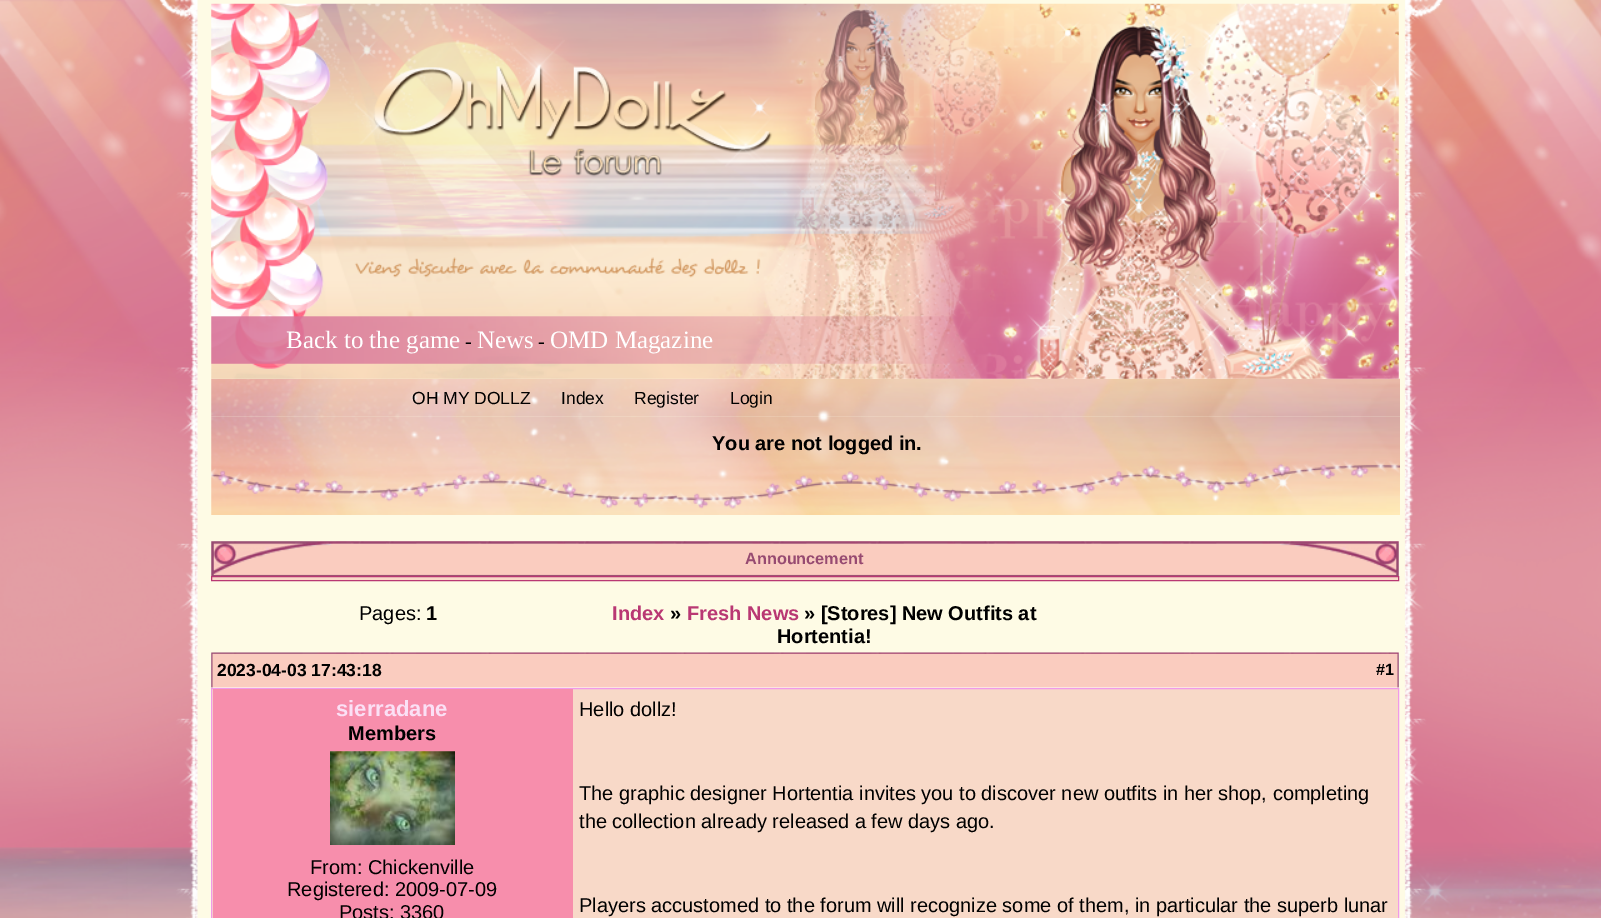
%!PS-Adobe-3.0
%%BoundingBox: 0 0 1601 918
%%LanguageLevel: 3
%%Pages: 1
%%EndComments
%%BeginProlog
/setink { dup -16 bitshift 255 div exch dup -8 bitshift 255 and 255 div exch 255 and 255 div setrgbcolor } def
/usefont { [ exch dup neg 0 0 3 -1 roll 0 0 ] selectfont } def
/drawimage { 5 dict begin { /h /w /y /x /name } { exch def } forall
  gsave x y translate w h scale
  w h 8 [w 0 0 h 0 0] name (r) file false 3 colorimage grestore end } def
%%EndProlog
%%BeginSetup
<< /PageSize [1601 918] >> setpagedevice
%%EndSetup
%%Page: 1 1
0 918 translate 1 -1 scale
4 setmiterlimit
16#FFFFFF setink
0 0 1601 918 rectfill
(img1.raw) 0 0 1601 918 drawimage
(img3.raw) 211 378 1189 39 drawimage
(img2.raw) 211 3 1188 376 drawimage
/LiberationSerif-Regular 25 usefont
286 348 moveto (Back to the game) show
/LiberationSerif-Regular 20 usefont
16#000000 setink
465 348 moveto (-) show
/LiberationSerif-Regular 25 usefont
16#FFFFFF setink
477 348 moveto (News) show
/LiberationSerif-Regular 20 usefont
16#000000 setink
538 348 moveto (-) show
/LiberationSerif-Regular 25 usefont
16#FFFFFF setink
550 348 moveto (OMD Magazine) show
/LiberationSans-Regular 17.5 usefont
16#000000 setink
[
    [(OH MY DOLLZ) 412 404]
    [(Index) 561 404]
    [(Register) 634 404]
    [(Login) 730 404]
] { aload pop moveto show } forall
(img4.raw) 211 416 1189 99 drawimage
/LiberationSans-Bold 20 usefont
712 450 moveto (You are not logged in.) show
(img5.raw) 211 541 1188 35 drawimage
/LiberationSans-Bold 16.25 usefont
16#974A71 setink
745 564 moveto (Announcement) show
16#F8D9C8 setink
211.5 576.5 moveto 1398.5 576.5 lineto 1398.5 580.5 lineto 211.5 580.5 lineto closepath gsave fill grestore
16#B93873 setink
stroke
/LiberationSans-Regular 20 usefont
16#000000 setink
359 620 moveto (Pages:) show
/LiberationSans-Bold 20 usefont
426 620 moveto (1) show
16#B93873 setink
612 620 moveto (Index) show
16#000000 setink
670 620 moveto (») show
16#B93873 setink
687 620 moveto (Fresh News) show
16#000000 setink
804 620 moveto (» [Stores] New Outfits at) show
777 643 moveto (Hortentia!) show
16#FFFFFF setink
211 653 1188 35 rectfill
(img6.raw) 211 652 1188 36 drawimage
/LiberationSans-Bold 17.5 usefont
16#000000 setink
217 676 moveto (2023-04-03 17:43:18) show
/LiberationSans-Bold 16.25 usefont
1376 675 moveto (#1) show
16#F8D9C8 setink
211.5 688.5 moveto 1398.5 688.5 lineto 1398.5 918.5 lineto 211.5 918.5 lineto closepath gsave fill grestore
16#F09AE9 setink
stroke
16#F78EAC setink
213 689 360 229 rectfill
/LiberationSans-Bold 22 usefont
16#FBE0F5 setink
336 716 moveto (sierradane) show
/LiberationSans-Bold 20 usefont
16#000000 setink
348 740 moveto (Members) show
(img7.raw) 330 751 125 94 drawimage
/LiberationSans-Regular 20 usefont
[
    [(From: Chickenville) 310 874]
    [(Registered: 2009-07-09) 287 896]
    [(Posts: 3360) 339 919]
    [(Hello dollz!) 579 716]
    [(The graphic designer Hortentia invites you to discover new outfits in her shop, completing) 579 800]
    [(the collection already released a few days ago.) 579 828]
    [(Players accustomed to the forum will recognize some of them, in particular the superb lunar) 579 912]
] { aload pop moveto show } forall
showpage
%%EOF
